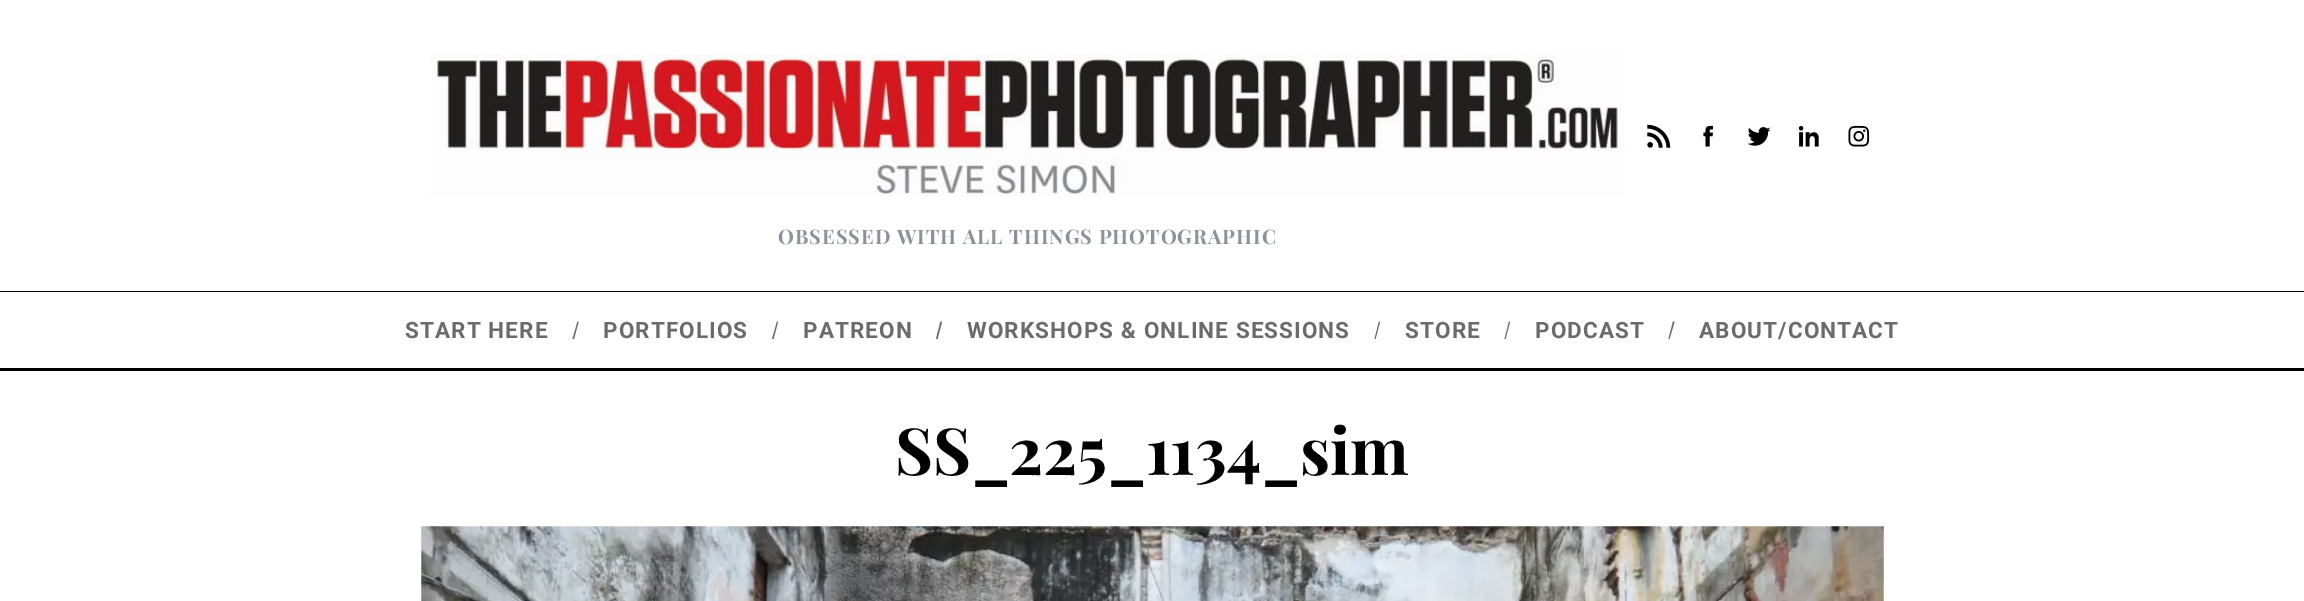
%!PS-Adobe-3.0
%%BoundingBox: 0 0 2304 601
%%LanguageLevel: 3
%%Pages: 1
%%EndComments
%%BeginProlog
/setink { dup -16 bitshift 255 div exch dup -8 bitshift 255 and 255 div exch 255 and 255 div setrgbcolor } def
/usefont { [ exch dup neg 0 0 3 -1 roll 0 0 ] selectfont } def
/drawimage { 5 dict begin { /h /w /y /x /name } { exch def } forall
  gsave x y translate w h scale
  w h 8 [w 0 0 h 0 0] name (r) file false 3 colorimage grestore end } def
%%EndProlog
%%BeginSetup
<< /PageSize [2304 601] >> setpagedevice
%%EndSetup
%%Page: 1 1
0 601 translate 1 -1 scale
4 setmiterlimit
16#FFFFFF setink
0 0 2304 601 rectfill
(img1.raw) 1647 124 24 24 drawimage
(img2.raw) 1703 125 10 22 drawimage
(img3.raw) 1747 127 24 19 drawimage
(img4.raw) 1798 126 21 21 drawimage
(img5.raw) 1848 125 22 22 drawimage
(img6.raw) 430 54 1195 143 drawimage
/PlayfairDisplay-Bold 20 usefont
16#8C919B setink
778 244 moveto 1 0 (OBSESSED WITH ALL THINGS PHOTOGRAPHIC) ashow
16#000000 setink
0 291 2304 1 rectfill
0 368 2304 3 rectfill
/Roboto-Bold 22.5 usefont
16#6B6B6B setink
405 338 moveto 1.1 0 (START HERE) ashow
577.5 321.5 moveto 578.5 322 lineto 574 339 lineto 572.5 339 lineto closepath fill
603 338 moveto 1.1 0 (PORTFOLIOS) ashow
777 321.5 moveto 778 322 lineto 773.5 339 lineto 772 339 lineto closepath fill
803 338 moveto 1.1 0 (PATREON) ashow
940.5 321.5 moveto 942 322 lineto 937.5 339 lineto 936 339 lineto closepath fill
967 338 moveto 1.1 0 (WORKSHOPS & ONLINE SESSIONS) ashow
1379 321.5 moveto 1380 322 lineto 1375.5 339 lineto 1374.5 339 lineto closepath fill
1405 338 moveto 1.1 0 (STORE) ashow
1509 321.5 moveto 1510 322 lineto 1505.5 339 lineto 1504.5 339 lineto closepath fill
1535 338 moveto 1.1 0 (PODCAST) ashow
1673 321.5 moveto 1674.5 322 lineto 1669.5 339 lineto 1668.5 339 lineto closepath fill
1699 338 moveto 1.1 0 (ABOUT/CONTACT) ashow
/PlayfairDisplay-Bold 65 usefont
16#000000 setink
895 475 moveto (SS_225_1134_sim) show
(img7.raw) 421 526 1463 75 drawimage
showpage
%%EOF
